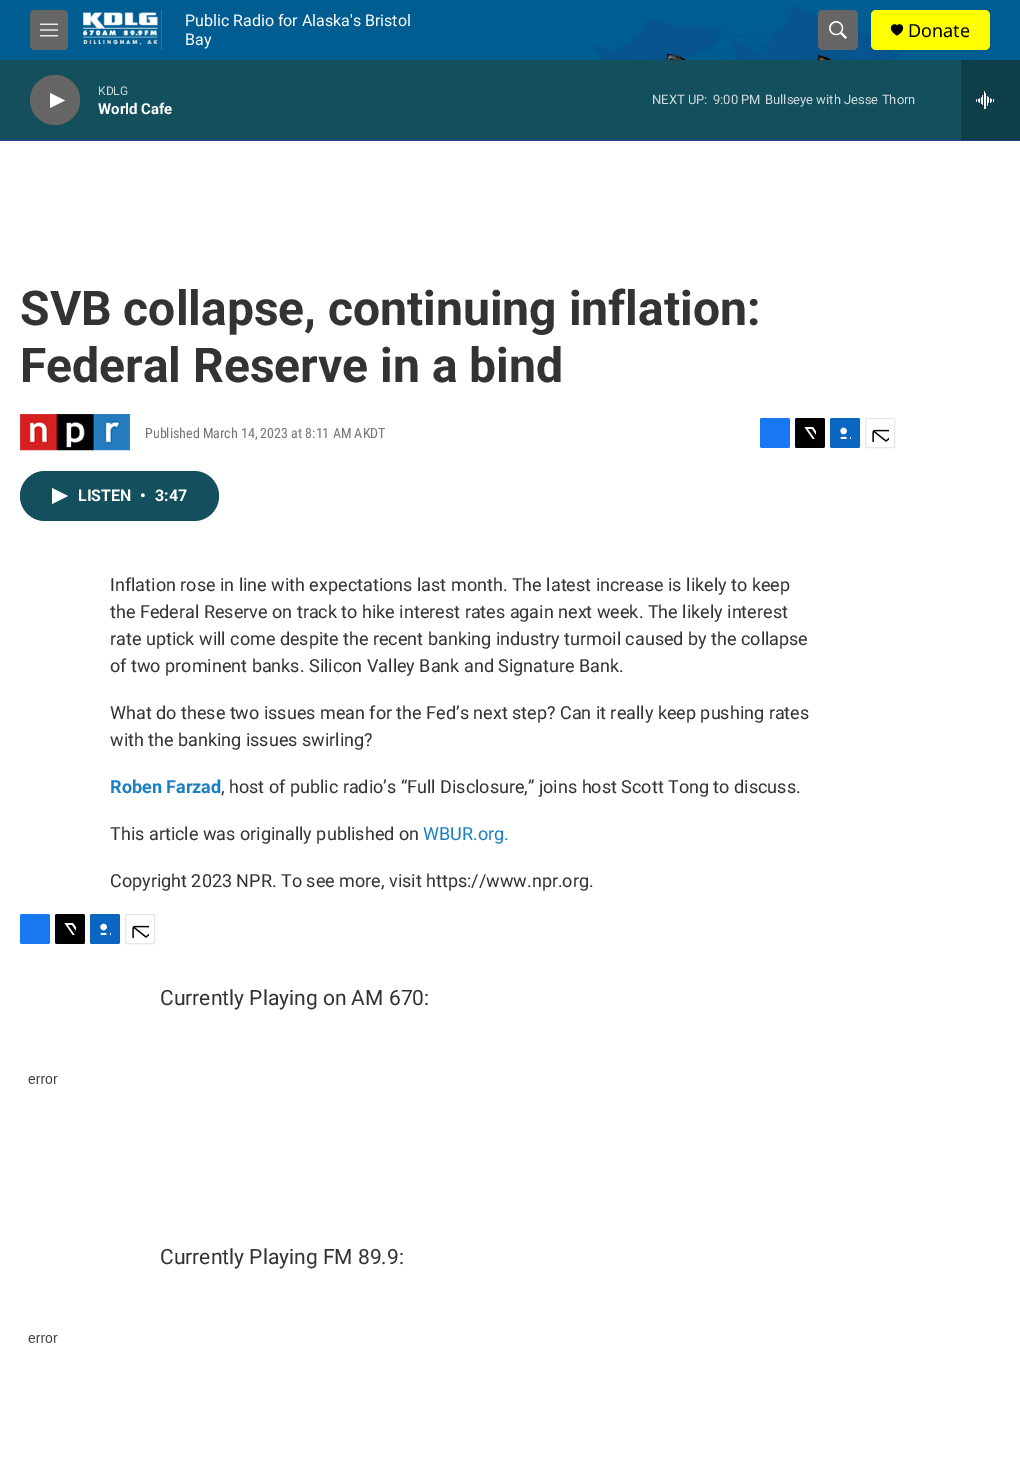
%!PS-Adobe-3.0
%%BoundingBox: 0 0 1020 1470
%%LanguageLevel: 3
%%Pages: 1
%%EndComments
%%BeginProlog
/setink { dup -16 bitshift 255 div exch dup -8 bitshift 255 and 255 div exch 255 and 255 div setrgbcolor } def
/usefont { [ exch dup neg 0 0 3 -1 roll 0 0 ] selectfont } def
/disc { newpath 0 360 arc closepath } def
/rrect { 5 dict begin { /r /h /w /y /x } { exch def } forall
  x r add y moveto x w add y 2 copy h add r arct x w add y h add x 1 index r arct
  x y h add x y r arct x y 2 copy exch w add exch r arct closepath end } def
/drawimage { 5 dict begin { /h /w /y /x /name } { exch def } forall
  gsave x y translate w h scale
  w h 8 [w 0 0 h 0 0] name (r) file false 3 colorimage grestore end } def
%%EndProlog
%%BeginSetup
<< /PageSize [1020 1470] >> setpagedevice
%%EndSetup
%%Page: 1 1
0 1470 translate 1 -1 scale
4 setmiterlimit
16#FFFFFF setink
0 0 1020 1470 rectfill
16#005D92 setink
0 0 1020 60 rectfill
16#2B3894 setink
0 140 1020 1 rectfill
(img1.raw) 594 7 312 53 drawimage
16#666666 setink
30 10 38 40 5 rrect fill
(img2.raw) 40 23 18 14 drawimage
(img3.raw) 83 10 79 40 drawimage
/Roboto-Regular 16 usefont
16#FFFFFF setink
185 26 moveto (Public Radio for Alaska's Bristol) show
185 45 moveto (Bay) show
16#666666 setink
818 10 40 40 5 rrect fill
(img4.raw) 829 21 18 18 drawimage
16#FFFF00 setink
871 10 119 40 5 rrect fill
16#000000 setink
897 26 moveto 895 21 884.5 28 897 35.5 curveto 909.5 28 899 21 897 26 curveto closepath fill
/NotoSans-Regular 18 usefont
908 37 moveto (Donate) show
16#134F5C setink
0 60 961 80 rectfill
16#666666 setink
55 100 25 disc fill
16#FFFFFF setink
50 93 moveto 65 100.5 lineto 50 108 lineto closepath fill
/Roboto-Regular 12 usefont
16#D0DCDE setink
98 95 moveto (KDLG) show
/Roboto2-Bold 15 usefont
16#FFFFFF setink
98 114 moveto (World Cafe) show
/Roboto-Regular 13 usefont
16#D0DCDE setink
[
    [(NEXT UP:) 652 104]
    [(9:00 PM) 713 104]
    [(Bullseye with Jesse Thorn) 765 104]
] { aload pop moveto show } forall
16#0F3F4A setink
961 60 59 80 rectfill
(img5.raw) 976 91 18 18 drawimage
/Roboto-Bold 48 usefont
16#333333 setink
20 325 moveto (SVB collapse, continuing inflation:) show
20 382 moveto (Federal Reserve in a bind) show
(img6.raw) 20 414 110 37 drawimage
/RobotoCondensed-Regular 14 usefont
16#767676 setink
145 438 moveto (Published March 14, 2023 at 8:11 AM AKDT) show
16#1778F2 setink
760 418 30 30 2 rrect fill
16#000000 setink
795 418 30 30 2 rrect fill
(img7.raw) 804 427 12 12 drawimage
16#0A66C1 setink
830 418 30 30 2 rrect fill
(img8.raw) 840 427 11 12 drawimage
16#E6E6E6 setink
865.5 418.5 29 29 1.5 rrect stroke
(img9.raw) 872 429 17 13 drawimage
16#134F5C setink
20 471 199 50 25 rrect fill
16#FFFFFF setink
52 488 moveto 68 496 lineto 52 504 lineto closepath fill
/Roboto2-Bold 16 usefont
[
    [(LISTEN) 78 501]
    [(•) 140 501]
    [(3:47) 155 501]
] { aload pop moveto show } forall
/Roboto-Regular 18 usefont
16#333333 setink
[
    [(Inflation rose in line with expectations last month. The latest increase is likely to keep) 110 591]
    [(the Federal Reserve on track to hike interest rates again next week. The likely interest) 110 618]
    [(rate uptick will come despite the recent banking industry turmoil caused by the collapse) 110 645]
    [(of two prominent banks. Silicon Valley Bank and Signature Bank.) 110 672]
    [(What do these two issues mean for the Fed’s next step? Can it really keep pushing rates) 110 719]
    [(with the banking issues swirling?) 110 746]
] { aload pop moveto show } forall
/Roboto2-Bold 18 usefont
16#1A7FC3 setink
110 793 moveto (Roben Farzad) show
/Roboto-Regular 18 usefont
16#333333 setink
221 793 moveto (, host of public radio’s “Full Disclosure,” joins host Scott Tong to discuss.) show
110 840 moveto (This article was originally published on) show
16#1A7FC3 setink
423 840 moveto (WBUR.org.) show
16#333333 setink
110 887 moveto (Copyright 2023 NPR. To see more, visit https://www.npr.org.) show
16#1778F2 setink
20 914 30 30 2 rrect fill
16#000000 setink
55 914 30 30 2 rrect fill
(img7.raw) 64 923 12 12 drawimage
16#0A66C1 setink
90 914 30 30 2 rrect fill
(img8.raw) 100 923 11 12 drawimage
16#E6E6E6 setink
125.5 914.5 29 29 1.5 rrect stroke
(img9.raw) 132 925 17 13 drawimage
/Roboto-Regular 21 usefont
16#333333 setink
160 1005 moveto (Currently Playing on AM 670:) show
(img10.raw) 28 1076 30 8 drawimage
160 1264 moveto (Currently Playing FM 89.9:) show
(img10.raw) 28 1335 30 8 drawimage
showpage
%%EOF
